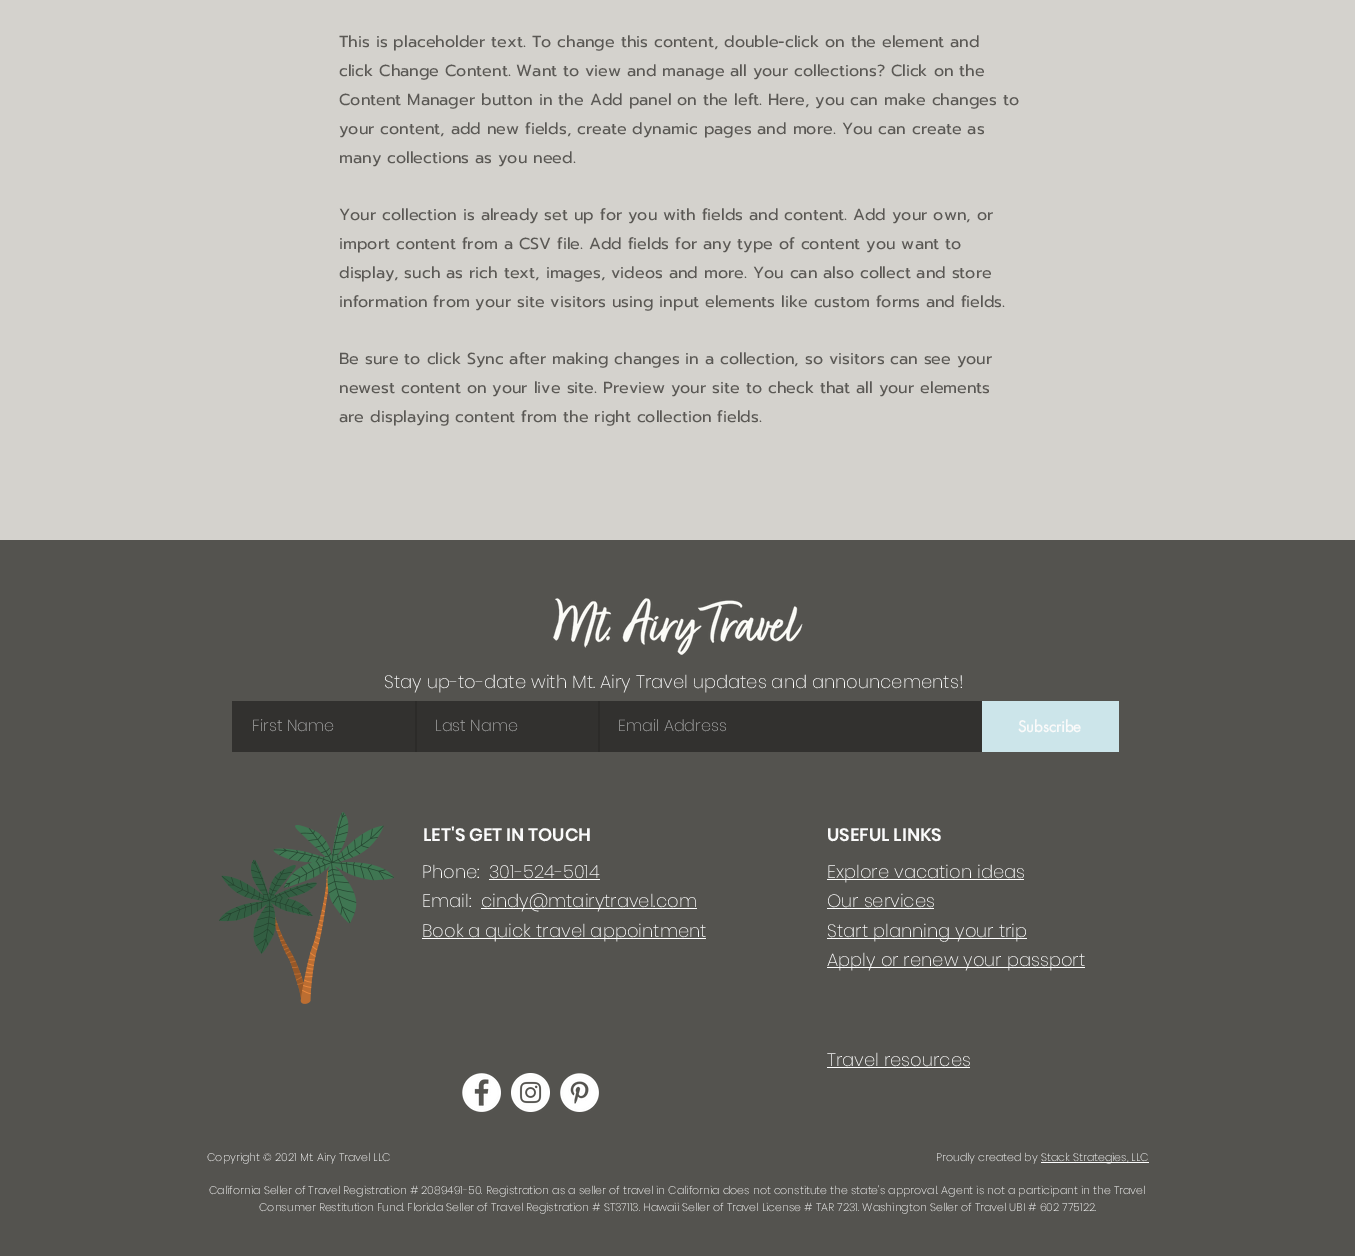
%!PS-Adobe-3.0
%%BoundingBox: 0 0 1355 1256
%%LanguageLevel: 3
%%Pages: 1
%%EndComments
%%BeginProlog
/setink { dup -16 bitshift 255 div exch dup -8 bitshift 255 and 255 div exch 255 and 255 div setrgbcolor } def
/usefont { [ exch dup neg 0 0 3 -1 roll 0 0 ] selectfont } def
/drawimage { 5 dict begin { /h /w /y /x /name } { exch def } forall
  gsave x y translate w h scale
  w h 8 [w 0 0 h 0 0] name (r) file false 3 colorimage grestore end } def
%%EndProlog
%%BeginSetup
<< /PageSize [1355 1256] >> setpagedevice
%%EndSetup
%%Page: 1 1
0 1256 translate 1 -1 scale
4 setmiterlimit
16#D4D2CD setink
0 0 1355 1256 rectfill
/Prompt-Regular 16 usefont
16#5A5854 setink
[
    [(This is placeholder text. To change this content, double-click on the element and) 339 47]
    [(click Change Content. Want to view and manage all your collections? Click on the) 339 76]
    [(Content Manager button in the Add panel on the left. Here, you can make changes to) 339 105]
    [(your content, add new fields, create dynamic pages and more. You can create as) 339 134]
    [(many collections as you need.) 339 163]
    [(Your collection is already set up for you with fields and content. Add your own, or) 339 220]
    [(import content from a CSV file. Add fields for any type of content you want to) 339 249]
    [(display, such as rich text, images, videos and more. You can also collect and store) 339 278]
    [(information from your site visitors using input elements like custom forms and fields.) 339 307]
    [(Be sure to click Sync after making changes in a collection, so visitors can see your) 339 364]
    [(newest content on your live site. Preview your site to check that all your elements) 339 393]
    [(are displaying content from the right collection fields.) 339 422]
] { aload pop moveto show } forall
[
    [0 540 1355 716 16#54534F]
    [600 701 382 51 16#32312F]
    [417 701 181 51 16#32312F]
    [598 701 2 51 16#2C2B29]
] { aload pop setink rectfill } forall
(img1.raw) 553 598 250 57 drawimage
/Poppins-ExtraLight 18 usefont
16#FAFAFA setink
384 688 moveto (Stay up-to-date with Mt. Airy Travel updates and announcements!) show
16#32312F setink
232 701 183 51 rectfill
16#2C2B29 setink
415 701 2 51 rectfill
/Poppins-ExtraLight 16 usefont
16#A9A9A9 setink
[
    [(First Name) 252 731]
    [(Last Name) 435 731]
    [(Email Address) 618 731]
] { aload pop moveto show } forall
16#CCE5EA setink
982 701 137 51 rectfill
/futura-Bold 15 usefont
16#FAFAFA setink
1018 732 moveto (Subscribe) show
(img2.raw) 219 812 175 192 drawimage
/Poppins-SemiBold 18 usefont
423 841 moveto (LET'S GET IN TOUCH) show
827 841 moveto (USEFUL LINKS) show
/Poppins-ExtraLight 18 usefont
422 878 moveto (Phone:) show
489 878 moveto (301-524-5014) show
16#FFFFFF setink
489 879 111 1 rectfill
827 879 197 1 rectfill
16#FAFAFA setink
827 878 moveto (Explore vacation ideas) show
422 907 moveto (Email:) show
16#FFFFFF setink
481 908 216 1 rectfill
16#FAFAFA setink
481 907 moveto (cindy@mtairytravel.com) show
827 907 moveto (Our services) show
16#FFFFFF setink
827 908 107 1 rectfill
422 938 284 1 rectfill
16#FAFAFA setink
422 937 moveto (Book a quick travel appointment) show
16#FFFFFF setink
827 938 200 1 rectfill
16#FAFAFA setink
827 937 moveto (Start planning your trip) show
16#FFFFFF setink
827 967 258 1 rectfill
16#FAFAFA setink
827 966 moveto (Apply or renew your passport) show
827 1066 moveto (Travel resources) show
16#FFFFFF setink
827 1067 143 1 rectfill
(img3.raw) 462 1073 39 39 drawimage
(img4.raw) 511 1073 39 39 drawimage
(img5.raw) 560 1073 39 39 drawimage
/Poppins-ExtraLight 11 usefont
16#FAFAFA setink
207 1161 moveto (Copyright © 2021 Mt. Airy Travel LLC) show
936 1161 moveto (Proudly created by) show
16#FFFFFF setink
1041 1162 108 1 rectfill
16#FAFAFA setink
[
    [(Stack Strategies, LLC) 1041 1161]
    [(California Seller of Travel Registration # 2089491-50. Registration as a seller of travel in California does not constitute the state's approval. Agent is not a participant in the Travel) 209 1194]
    [(Consumer Restitution Fund. Florida Seller of Travel Registration # ST37113. Hawaii Seller of Travel License # TAR 7231. Washington Seller of Travel UBI # 602 775122.) 259 1211]
] { aload pop moveto show } forall
showpage
%%EOF
